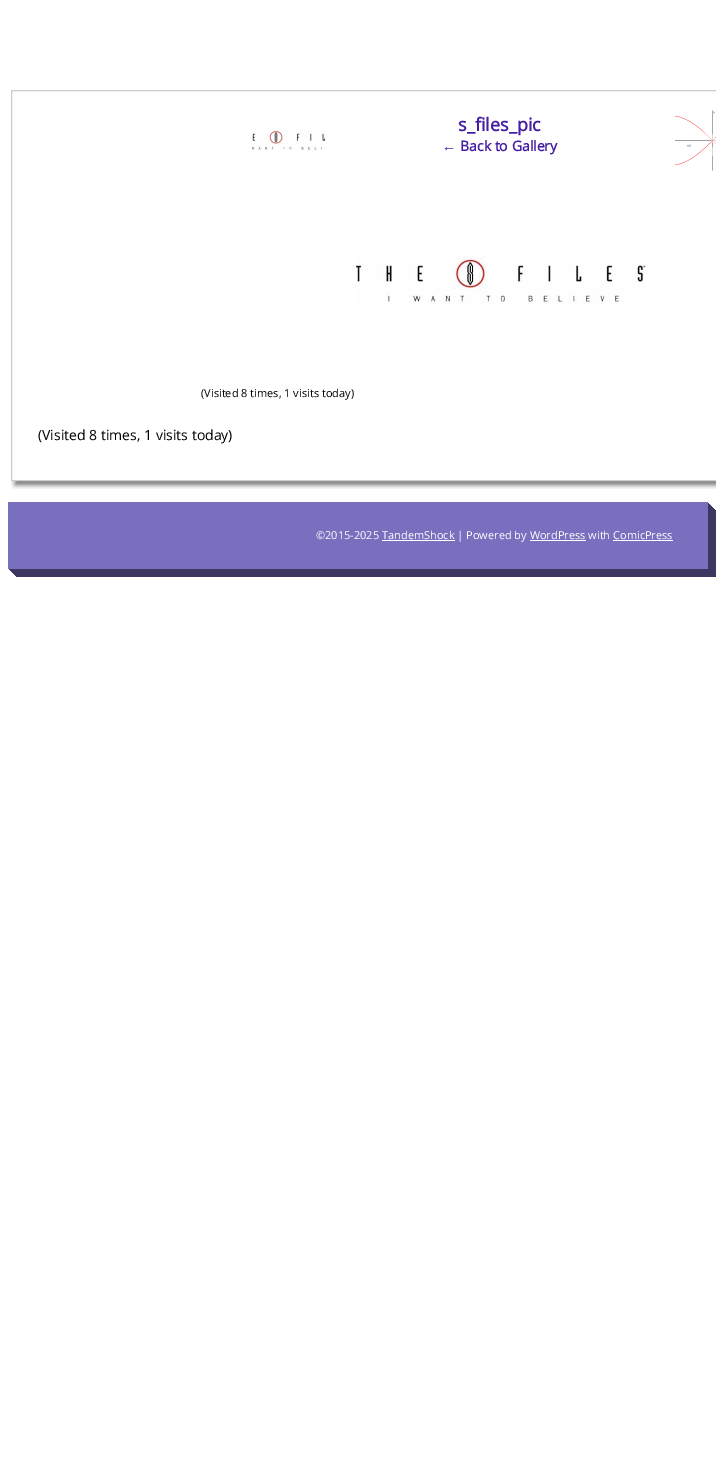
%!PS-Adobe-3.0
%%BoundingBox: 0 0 716 1484
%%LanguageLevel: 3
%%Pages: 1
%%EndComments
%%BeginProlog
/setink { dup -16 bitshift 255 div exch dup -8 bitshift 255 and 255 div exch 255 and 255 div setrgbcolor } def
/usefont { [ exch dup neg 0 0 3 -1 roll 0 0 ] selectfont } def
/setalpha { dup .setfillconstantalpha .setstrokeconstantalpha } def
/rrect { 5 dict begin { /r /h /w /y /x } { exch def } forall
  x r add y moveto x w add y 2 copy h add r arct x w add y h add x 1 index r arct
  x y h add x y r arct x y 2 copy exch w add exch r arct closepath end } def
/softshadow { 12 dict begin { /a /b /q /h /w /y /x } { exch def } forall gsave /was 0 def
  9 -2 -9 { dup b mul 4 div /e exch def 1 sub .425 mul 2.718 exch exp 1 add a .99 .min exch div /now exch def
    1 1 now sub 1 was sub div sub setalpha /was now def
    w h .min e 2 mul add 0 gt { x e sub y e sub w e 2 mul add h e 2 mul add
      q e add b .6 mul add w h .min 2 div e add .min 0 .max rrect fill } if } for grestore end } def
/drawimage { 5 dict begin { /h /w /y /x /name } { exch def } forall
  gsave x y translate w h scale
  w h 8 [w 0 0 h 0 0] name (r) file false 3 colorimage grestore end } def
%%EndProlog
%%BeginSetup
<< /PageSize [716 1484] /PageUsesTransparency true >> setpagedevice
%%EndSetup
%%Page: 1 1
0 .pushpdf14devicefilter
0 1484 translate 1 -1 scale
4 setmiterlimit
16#FFFFFF setink
0 0 716 1484 rectfill
gsave
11 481 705 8 rectclip
16#000000 setink
15 94 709 391 0 2.5 0.53 softshadow
grestore
16#CCCCCC setink
11.5 90.5 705 390 rectstroke
(img1.raw) 252 129 75 21 drawimage
(img2.raw) 283 146 8 4 drawimage
/OpenSans-Bold 18 usefont
16#441DA1 setink
458 131 moveto (s_files_pic) show
/LiberationSans-Bold 14 usefont
442 151 moveto (←) show
/OpenSans-Bold 14 usefont
460 151 moveto (Back to Gallery) show
(img3.raw) 675 110 41 61 drawimage
(img4.raw) 675 110 41 61 drawimage
(img5.raw) 356 254 290 50 drawimage
/OpenSans-Regular 11 usefont
16#000000 setink
201 397 moveto (\(Visited 8 times, 1 visits today\)) show
/OpenSans-Regular 14 usefont
38 440 moveto (\(Visited 8 times, 1 visits today\)) show
16#3C3760 setink
16 569 moveto 16 577 lineto 716 577 lineto 716 510 lineto 708 510 lineto 708 569 lineto closepath fill
15 569 moveto 15 576 lineto 715 576 lineto 715 509 lineto 708 509 lineto 708 569 lineto closepath fill
14 569 moveto 14 575 lineto 714 575 lineto 714 508 lineto 708 508 lineto 708 569 lineto closepath fill
13 569 moveto 13 574 lineto 713 574 lineto 713 507 lineto 708 507 lineto 708 569 lineto closepath fill
12 569 moveto 12 573 lineto 712 573 lineto 712 506 lineto 708 506 lineto 708 569 lineto closepath fill
11 569 moveto 11 572 lineto 711 572 lineto 711 505 lineto 708 505 lineto 708 569 lineto closepath fill
10 569 moveto 10 571 lineto 710 571 lineto 710 504 lineto 708 504 lineto 708 569 lineto closepath fill
9 569 moveto 9 570 lineto 709 570 lineto 709 503 lineto 708 503 lineto 708 569 lineto closepath fill
16#786FBF setink
8 502 700 67 rectfill
/OpenSans-Regular 11 usefont
16#FFFFFF setink
316 539 moveto (©2015-2025 TandemShock | Powered by WordPress with ComicPress) show
[
    [382 540 73 1 16#FFFFFF]
    [530 540 56 1 16#FFFFFF]
    [613 540 60 1 16#FFFFFF]
] { aload pop setink rectfill } forall
.poppdf14devicefilter showpage
%%EOF
